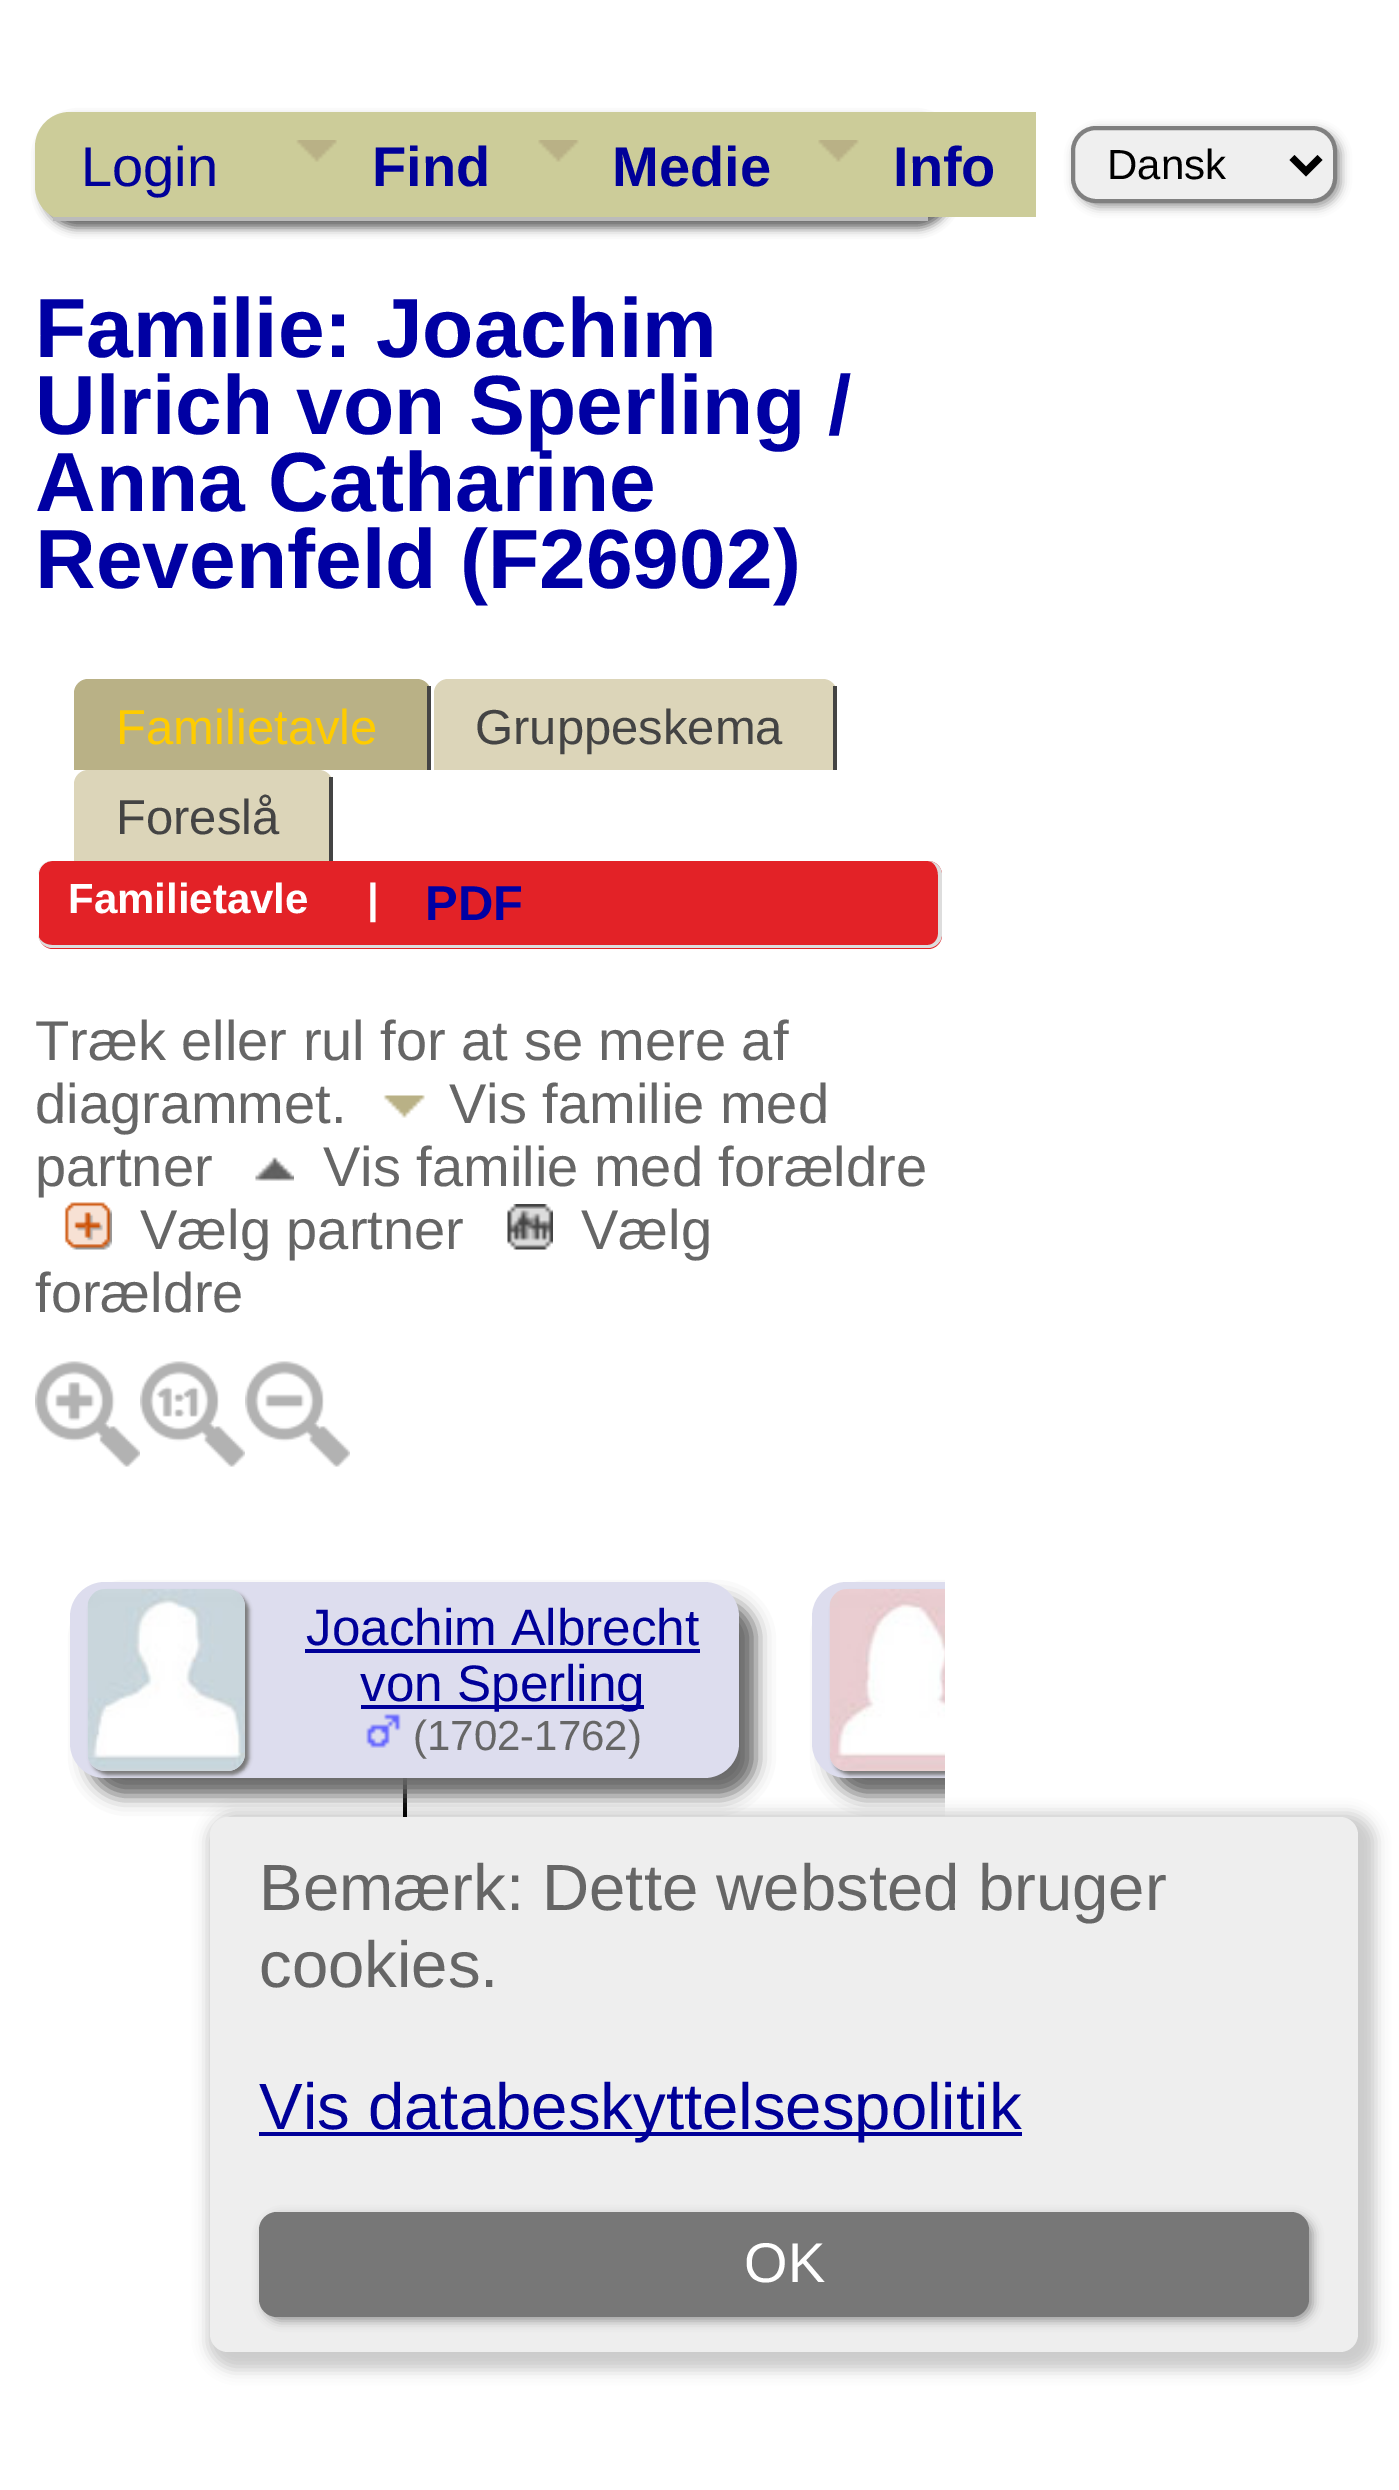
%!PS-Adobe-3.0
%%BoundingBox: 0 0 1399 2490
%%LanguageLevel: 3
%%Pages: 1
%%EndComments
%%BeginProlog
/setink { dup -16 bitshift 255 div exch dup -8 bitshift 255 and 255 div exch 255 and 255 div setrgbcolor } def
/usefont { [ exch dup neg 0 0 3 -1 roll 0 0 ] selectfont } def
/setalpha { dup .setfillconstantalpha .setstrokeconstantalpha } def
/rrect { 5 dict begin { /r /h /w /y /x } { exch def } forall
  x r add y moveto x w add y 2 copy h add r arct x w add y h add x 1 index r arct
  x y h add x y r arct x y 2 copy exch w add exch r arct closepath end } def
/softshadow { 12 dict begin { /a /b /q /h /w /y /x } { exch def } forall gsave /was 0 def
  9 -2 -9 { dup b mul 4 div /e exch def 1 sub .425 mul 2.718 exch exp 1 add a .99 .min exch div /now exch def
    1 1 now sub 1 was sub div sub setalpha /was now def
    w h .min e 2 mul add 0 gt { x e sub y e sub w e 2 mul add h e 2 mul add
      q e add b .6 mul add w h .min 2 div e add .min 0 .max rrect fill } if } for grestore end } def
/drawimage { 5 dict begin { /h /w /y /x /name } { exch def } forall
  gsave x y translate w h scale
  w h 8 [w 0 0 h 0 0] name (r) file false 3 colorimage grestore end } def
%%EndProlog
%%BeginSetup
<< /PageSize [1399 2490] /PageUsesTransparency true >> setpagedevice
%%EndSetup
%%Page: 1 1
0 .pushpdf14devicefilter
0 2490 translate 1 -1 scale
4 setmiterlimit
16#FFFFFF setink
0 0 1399 2490 rectfill
16#666666 setink
42 119 910 109 35 5 1 softshadow
16#CCCC99 setink
35 112 910 109 35 rrect fill
16#BBBBBB setink
53 217 875 4 rectfill
/LiberationSans-Regular 56 usefont
16#000099 setink
81 186 moveto (Login) show
16#CCCC99 setink
911 112 125 105 rectfill
(img1.raw) 296 140 41 22 drawimage
/LiberationSans-Bold 56 usefont
16#000099 setink
372 186 moveto (Find) show
(img2.raw) 538 140 41 22 drawimage
612 186 moveto (Medie) show
(img2.raw) 818 140 41 22 drawimage
893 186 moveto (Info) show
16#999999 setink
1075 130 266 77 25 5 1 softshadow
16#EFEFEF setink
1073 128 262 73 23 rrect gsave fill grestore
16#808080 setink
4 setlinewidth
stroke
16#000000 setink
7 setlinewidth
1292 157.5 moveto 1306 171.5 lineto 1320 157.5 lineto stroke
/LiberationSans-Regular 42 usefont
1107 179 moveto (Dansk) show
/LiberationSans-Bold 84 usefont
16#0000A3 setink
[
    [(Familie: Joachim) 35 357]
    [(Ulrich von Sperling /) 35 434]
    [(Anna Catharine) 35 511]
    [(Revenfeld \(F26902\)) 35 588]
] { aload pop moveto show } forall
16#B9B186 setink
88 679 moveto 417 679 lineto 424.5 679 431 685.5 431 693 curveto 431 770 lineto 74 770 lineto 74 693 lineto 74 685.5 80.5 679 88 679 curveto closepath fill
16#444444 setink
427 686 4 84 rectfill
/LiberationSans-Regular 49 usefont
16#FFCC00 setink
116 744 moveto (Familietavle) show
16#DCD5B9 setink
448 679 moveto 823 679 lineto 830.5 679 837 685.5 837 693 curveto 837 770 lineto 434 770 lineto 434 693 lineto 434 685.5 440.5 679 448 679 curveto closepath fill
16#444444 setink
833 686 4 84 rectfill
475 744 moveto (Gruppeskema) show
16#DCD5B9 setink
88 770 moveto 319 770 lineto 326.5 770 333 776.5 333 784 curveto 333 861 lineto 74 861 lineto 74 784 lineto 74 776.5 80.5 770 88 770 curveto closepath fill
16#444444 setink
329 777 4 84 rectfill
116 834 moveto (Foreslå) show
16#E32227 setink
39 861 903 88 14 rrect fill
16#DDDDDD setink
52 861 moveto 928 861 lineto 935 861 942 867 942 875 curveto 942 934 lineto 942 942 935 948 928 948 curveto 52 948 lineto 45 948 38 942 38 934 curveto 38 875 lineto 38 867 45 861 52 861 curveto closepath 52 861 moveto 928 861 lineto 933 861 938 867 938 875 curveto 938 934 lineto 938 940 933 945 928 945 curveto 52 945 lineto 45 945 38 940 38 934 curveto 38 875 lineto 38 867 45 861 52 861 curveto closepath eofill
/LiberationSans-Bold 42 usefont
16#FFFFFF setink
68 913 moveto (Familietavle) show
367 913 moveto (|) show
/LiberationSans-Bold 49 usefont
16#0000A3 setink
425 920 moveto (PDF) show
/LiberationSans-Regular 56 usefont
16#666666 setink
35 1060 moveto (Træk eller rul for at se mere af) show
35 1123 moveto (diagrammet.) show
(img3.raw) 383 1095 42 23 drawimage
449 1123 moveto (Vis familie med) show
35 1186 moveto (partner) show
(img4.raw) 255 1157 39 24 drawimage
323 1186 moveto (Vis familie med forældre) show
(img5.raw) 64 1202 48 48 drawimage
140 1249 moveto (Vælg partner) show
(img6.raw) 507 1204 46 46 drawimage
581 1249 moveto (Vælg) show
35 1312 moveto (forældre) show
(img7.raw) 35 1361 105 106 drawimage
(img8.raw) 140 1361 105 106 drawimage
(img9.raw) 245 1361 105 106 drawimage
16#000000 setink
403 1778 4 39 rectfill
16#666666 setink
88 1600 668 196 35 9 1 softshadow
16#DDDDEE setink
70 1582 669 196 35 rrect fill
16#777777 setink
91 1593 158 182 18 2 1 softshadow
(img10.raw) 87 1589 158 182 drawimage
/LiberationSans-Regular 51.25 usefont
16#000099 setink
306 1645 moveto (Joachim Albrecht) show
305 1649 395 4 rectfill
361 1705 283 4 rectfill
360 1701 moveto (von Sperling) show
(img11.raw) 366 1713 35 35 drawimage
/LiberationSans-Regular 42 usefont
16#666666 setink
413 1750 moveto (\(1702-1762\)) show
gsave
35 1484 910 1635 rectclip
830 1600 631 196 35 9 1 softshadow
grestore
16#DDDDEE setink
847 1582 moveto 945 1582 lineto 945 1778 lineto 847 1778 lineto 827.5 1778 812 1762.5 812 1743 curveto 812 1617 lineto 812 1597.5 827.5 1582 847 1582 curveto closepath fill
gsave
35 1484 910 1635 rectclip
16#777777 setink
833 1593 158 182 18 2 1 softshadow
grestore
(img12.raw) 829 1589 116 182 drawimage
16#000000 setink
207 1813 1169 557 28 7 0.2 softshadow
16#EEEEEE setink
210 1817 1148 535 18 rrect fill
/LiberationSans-Regular 65.3 usefont
16#666666 setink
259 1910 moveto (Bemærk: Dette websted bruger) show
259 1987 moveto (cookies.) show
16#000099 setink
259 2132 763 4 rectfill
259 2129 moveto (Vis databeskyttelsespolitik) show
16#999999 setink
263 2216 1050 105 18 5 1 softshadow
16#777777 setink
259 2212 1050 105 18 rrect fill
/LiberationSans-Regular 56 usefont
16#FFFFFF setink
744 2282 moveto (OK) show
.poppdf14devicefilter showpage
%%EOF
